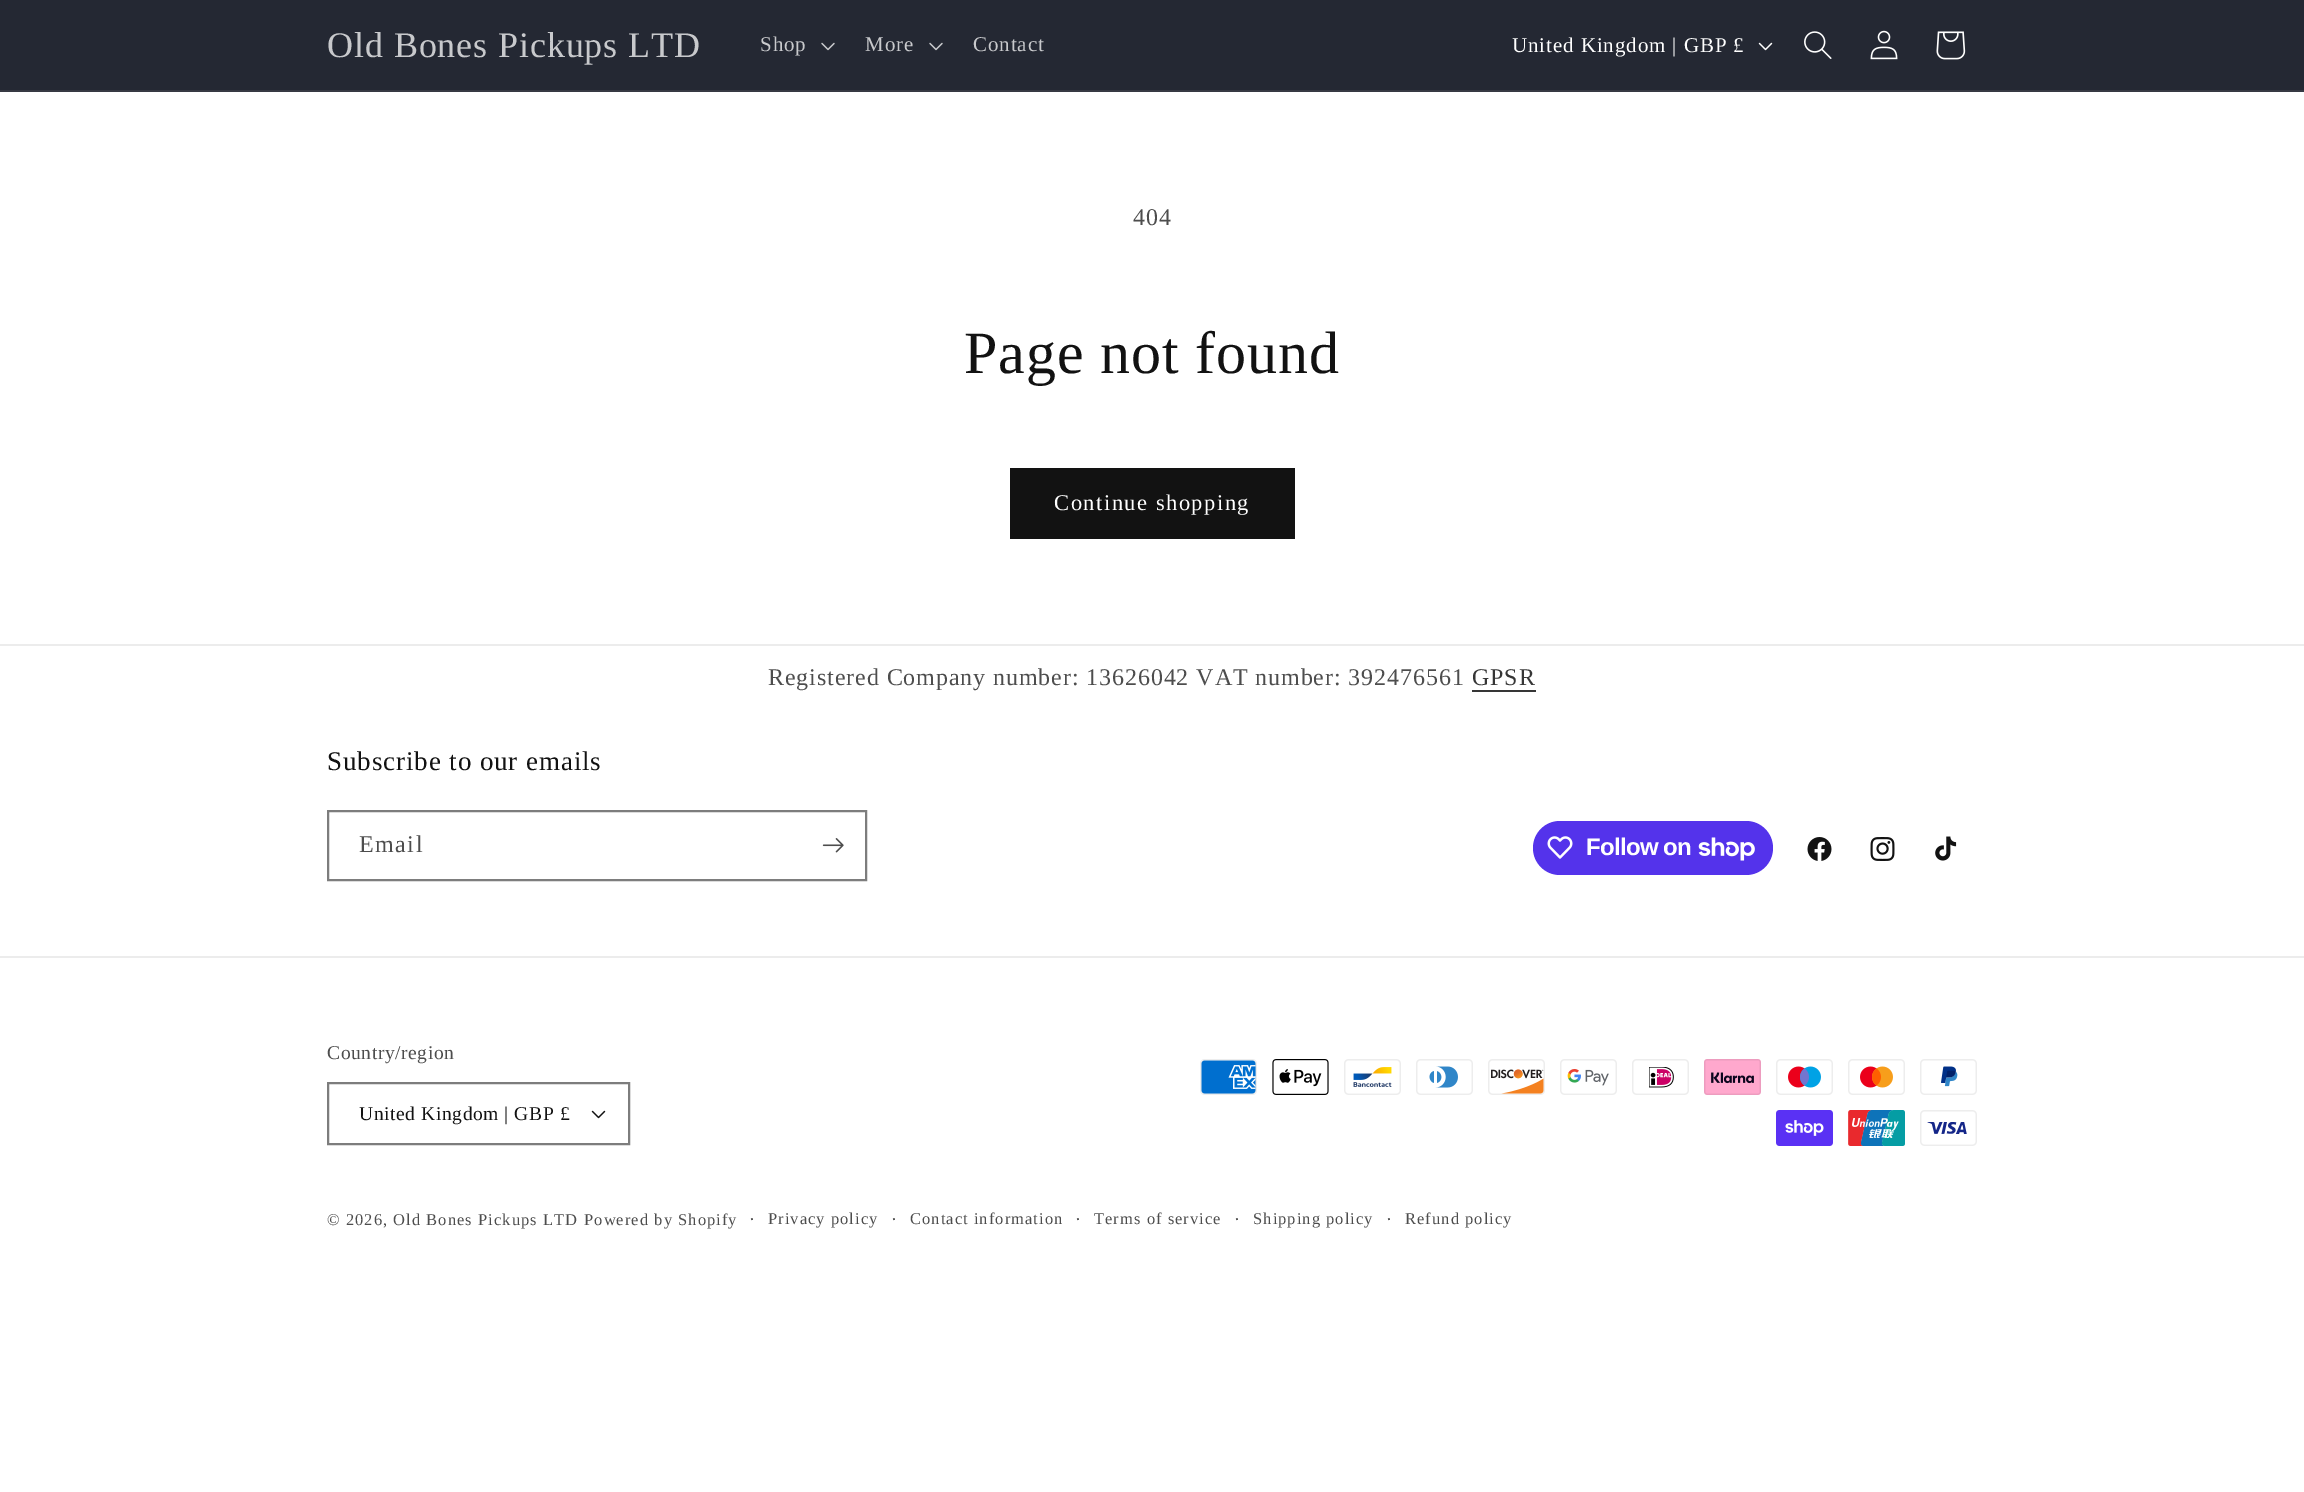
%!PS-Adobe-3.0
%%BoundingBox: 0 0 2304 1492
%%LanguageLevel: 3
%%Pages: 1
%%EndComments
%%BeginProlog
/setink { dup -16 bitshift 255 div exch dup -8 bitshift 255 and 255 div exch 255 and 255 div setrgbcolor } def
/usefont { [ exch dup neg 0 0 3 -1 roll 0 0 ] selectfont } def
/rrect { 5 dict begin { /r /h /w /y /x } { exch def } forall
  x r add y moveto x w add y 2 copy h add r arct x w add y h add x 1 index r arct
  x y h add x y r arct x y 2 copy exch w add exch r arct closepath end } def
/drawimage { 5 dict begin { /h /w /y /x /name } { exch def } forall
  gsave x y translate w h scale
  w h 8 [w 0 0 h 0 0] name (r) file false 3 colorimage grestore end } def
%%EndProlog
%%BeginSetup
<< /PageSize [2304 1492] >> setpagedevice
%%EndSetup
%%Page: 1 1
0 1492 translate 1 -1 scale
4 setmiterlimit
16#FFFFFF setink
0 0 2304 1492 rectfill
16#242833 setink
0 0 2304 90 rectfill
16#363943 setink
0 90 2304 2 rectfill
/LiberationSerif-Regular 36 usefont
16#C8C9CC setink
327 57 moveto 0.9 0 (Old Bones Pickups LTD) ashow
/LiberationSerif-Regular 21 usefont
760 51 moveto 0.9 0 (Shop) ashow
(img1.raw) 821 42 14 9 drawimage
865 51 moveto 0.9 0 (More) ashow
(img1.raw) 929 42 14 9 drawimage
973 51 moveto 0.9 0 (Contact) ashow
16#FFFFFF setink
1512 52 moveto 0.9 0 (United Kingdom | GBP £) ashow
(img2.raw) 1758 42 15 9 drawimage
(img3.raw) 1804 31 28 28 drawimage
(img4.raw) 1870 30 28 30 drawimage
(img5.raw) 1936 31 30 29 drawimage
/LiberationSerif-Regular 24 usefont
16#4D4D4D setink
1133 225 moveto 0.9 0 (404) ashow
/LiberationSerif-Regular 60 usefont
16#121212 setink
964 373 moveto 0.9 0 (Page not found) ashow
1010 468 285 71 rectfill
/LiberationSerif-Regular 22.5 usefont
16#FFFFFF setink
1054 510 moveto 1.5 0 (Continue shopping) ashow
16#ECECEC setink
0 644 2304 2 rectfill
/LiberationSerif-Regular 24 usefont
16#4D4D4D setink
768 685 moveto 0.9 0 (Registered Company number: 13626042 VAT number: 392476561) ashow
16#363636 setink
1472 685 moveto 0.9 0 (GPSR) ashow
1472 690 64 2 rectfill
/LiberationSerif-Regular 27 usefont
16#121212 setink
327 770 moveto 0.9 0 (Subscribe to our emails) ashow
16#7D7D7D setink
2 setlinewidth
328 811 538 69 rectstroke
/LiberationSerif-Regular 24 usefont
16#4D4D4D setink
359 852 moveto 1.5 0 (Email) ashow
(img6.raw) 822 838 22 15 drawimage
16#5433EB setink
1533 821 240 54 27 rrect fill
(img7.raw) 1547 836 26 23 drawimage
/LiberationSans-Bold 24 usefont
16#FFFFFF setink
1586 855 moveto -0.75 0 (Follow on) ashow
(img8.raw) 1698 837 57 24 drawimage
(img9.raw) 1807 837 25 24 drawimage
(img10.raw) 1870 837 25 24 drawimage
(img11.raw) 1935 836 22 25 drawimage
16#ECECEC setink
0 956 2304 2 rectfill
/LiberationSerif-Regular 19.5 usefont
16#4D4D4D setink
327 1059 moveto 0.6 0 (Country/region) ashow
(img12.raw) 591 1110 15 9 drawimage
16#7D7D7D setink
328 1083 301 61 rectstroke
16#121212 setink
359 1120 moveto 0.6 0 (United Kingdom | GBP £) ashow
(img13.raw) 1200 1059 57 36 drawimage
(img14.raw) 1272 1059 57 36 drawimage
(img15.raw) 1344 1059 57 36 drawimage
(img16.raw) 1416 1059 57 36 drawimage
(img17.raw) 1488 1059 57 36 drawimage
(img18.raw) 1560 1059 57 36 drawimage
(img19.raw) 1632 1059 57 36 drawimage
(img20.raw) 1704 1059 57 36 drawimage
(img21.raw) 1776 1059 57 36 drawimage
(img22.raw) 1848 1059 57 36 drawimage
(img23.raw) 1920 1059 57 36 drawimage
(img24.raw) 1776 1110 57 36 drawimage
(img25.raw) 1848 1110 57 36 drawimage
(img26.raw) 1920 1110 57 36 drawimage
/LiberationSerif-Regular 16.5 usefont
16#4D4D4D setink
327 1225 moveto 1.05 0 (© 2026, Old Bones Pickups LTD) ashow
584 1225 moveto 1.05 0 (Powered by Shopify) ashow
/LiberationSerif-Regular 18 usefont
749 1225 moveto 1.05 0 (·) ashow
/LiberationSerif-Regular 16.5 usefont
768 1224 moveto 1.05 0 (Privacy policy) ashow
/LiberationSerif-Regular 18 usefont
891 1225 moveto 1.05 0 (·) ashow
/LiberationSerif-Regular 16.5 usefont
910 1224 moveto 1.05 0 (Contact information) ashow
/LiberationSerif-Regular 18 usefont
1075 1225 moveto 1.05 0 (·) ashow
/LiberationSerif-Regular 16.5 usefont
1094 1224 moveto 1.05 0 (Terms of service) ashow
/LiberationSerif-Regular 18 usefont
1234 1225 moveto 1.05 0 (·) ashow
/LiberationSerif-Regular 16.5 usefont
1253 1224 moveto 1.05 0 (Shipping policy) ashow
/LiberationSerif-Regular 18 usefont
1386 1225 moveto 1.05 0 (·) ashow
/LiberationSerif-Regular 16.5 usefont
1405 1224 moveto 1.05 0 (Refund policy) ashow
showpage
%%EOF
